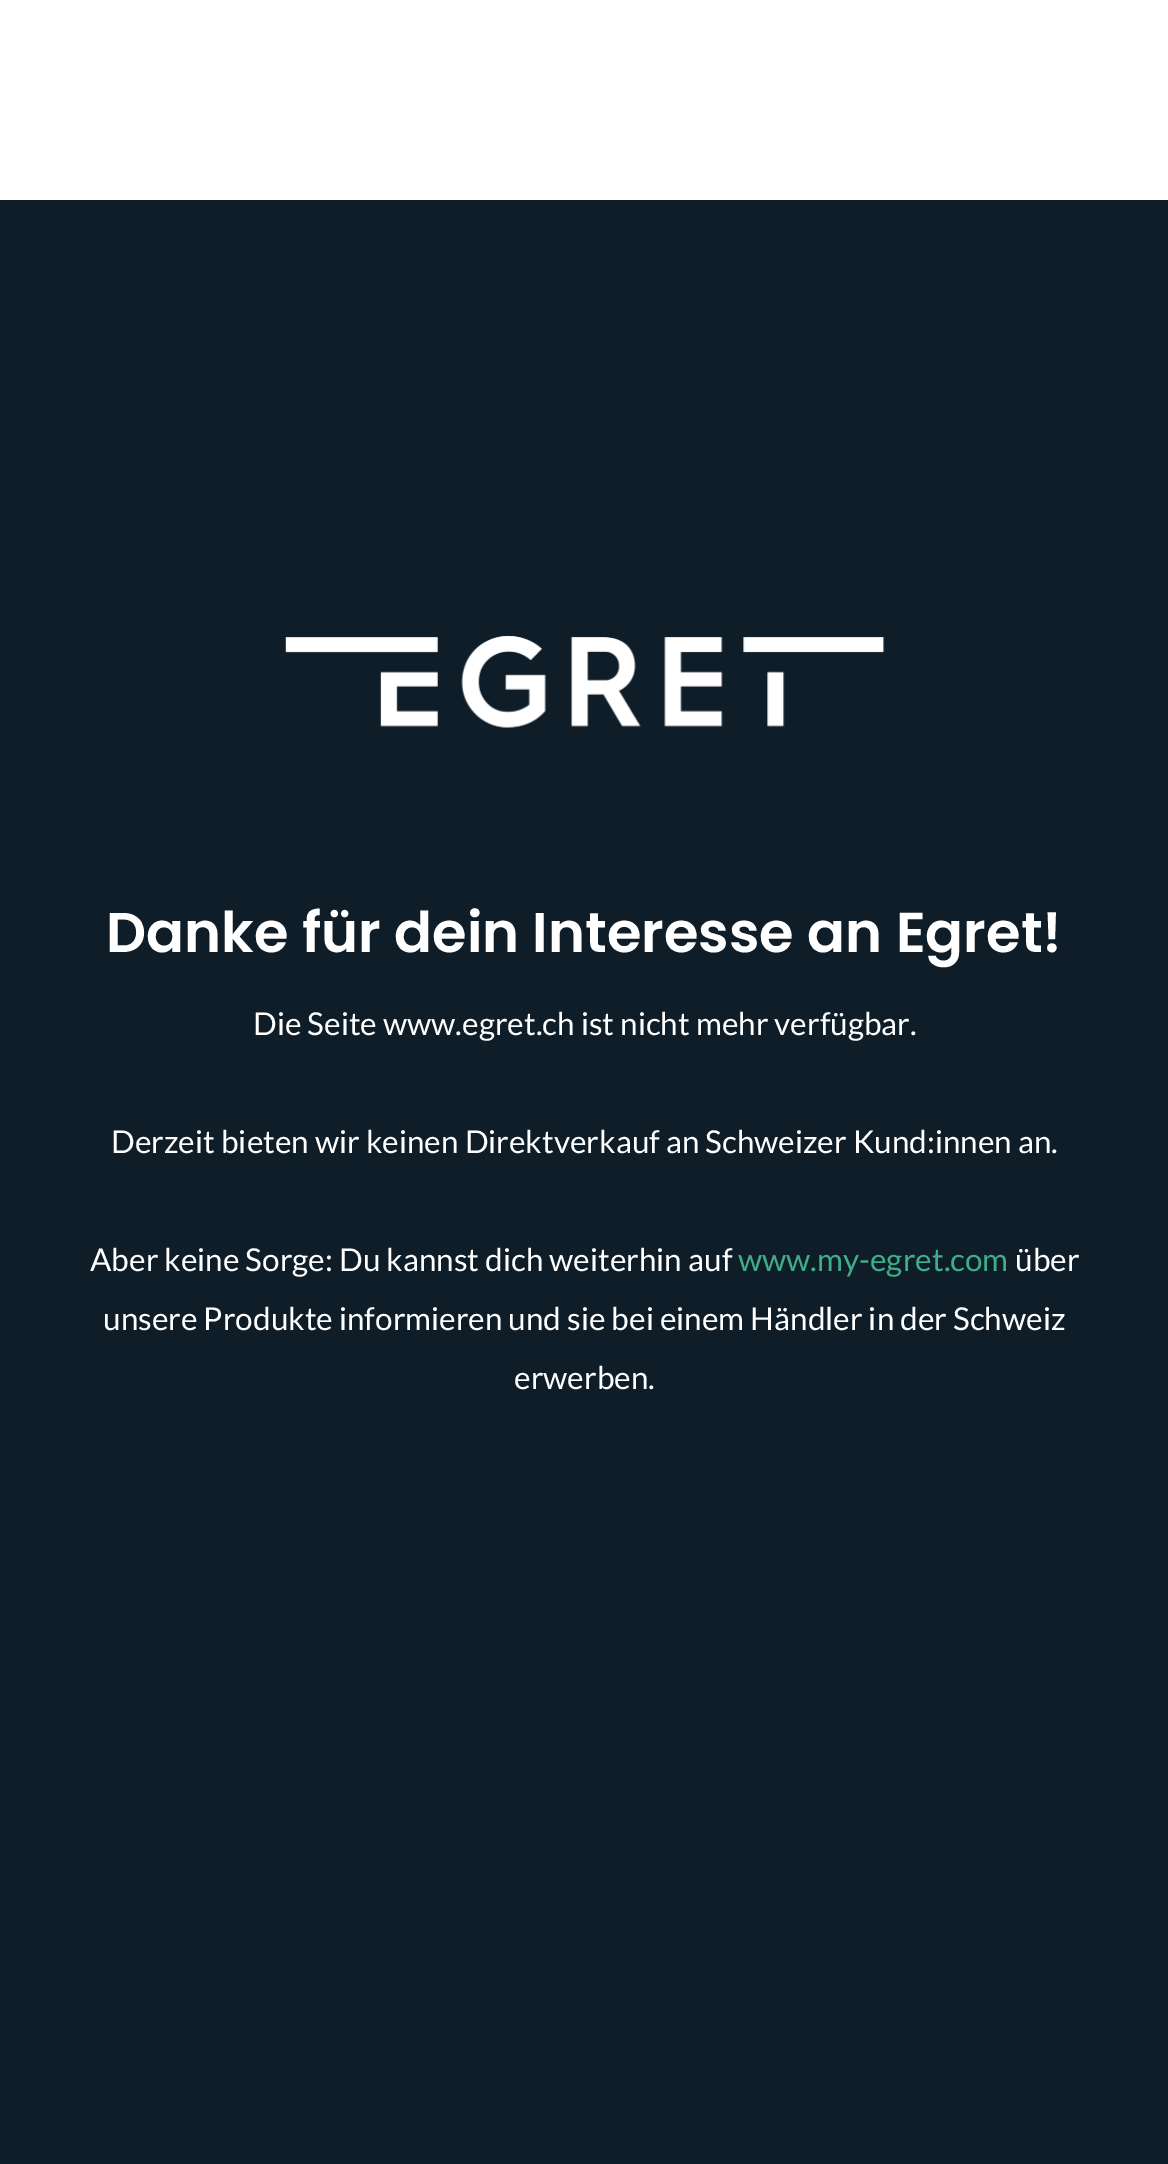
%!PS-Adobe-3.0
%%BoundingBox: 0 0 1168 2164
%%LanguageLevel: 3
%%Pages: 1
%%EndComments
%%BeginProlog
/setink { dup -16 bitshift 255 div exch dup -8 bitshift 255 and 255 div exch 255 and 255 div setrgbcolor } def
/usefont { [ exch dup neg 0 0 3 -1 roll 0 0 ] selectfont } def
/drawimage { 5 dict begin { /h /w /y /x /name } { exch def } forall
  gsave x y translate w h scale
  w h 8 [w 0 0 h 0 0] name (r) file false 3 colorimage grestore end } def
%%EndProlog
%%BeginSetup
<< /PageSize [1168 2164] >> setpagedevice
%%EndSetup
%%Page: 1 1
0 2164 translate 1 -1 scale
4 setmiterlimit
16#FFFFFF setink
0 0 1168 2164 rectfill
16#0E1D28 setink
0 200 1168 1964 rectfill
(img1.raw) 285 635 600 93 drawimage
/Poppins-SemiBold 56 usefont
16#FFFFFF setink
106 952 moveto (Danke für dein Interesse an Egret!) show
/Lato-Regular 31.5 usefont
[
    [(Die Seite www.egret.ch ist nicht mehr verfügbar.) 253 1035]
    [(Derzeit bieten wir keinen Direktverkauf an Schweizer Kund:innen an.) 111 1153]
    [(Aber keine Sorge: Du kannst dich weiterhin auf) 90 1271]
] { aload pop moveto show } forall
16#3FAD88 setink
738 1271 moveto (www.my-egret.com) show
16#FFFFFF setink
[
    [(über) 1015 1271]
    [(unsere Produkte informieren und sie bei einem Händler in der Schweiz) 103 1330]
    [(erwerben.) 514 1389]
] { aload pop moveto show } forall
showpage
%%EOF
